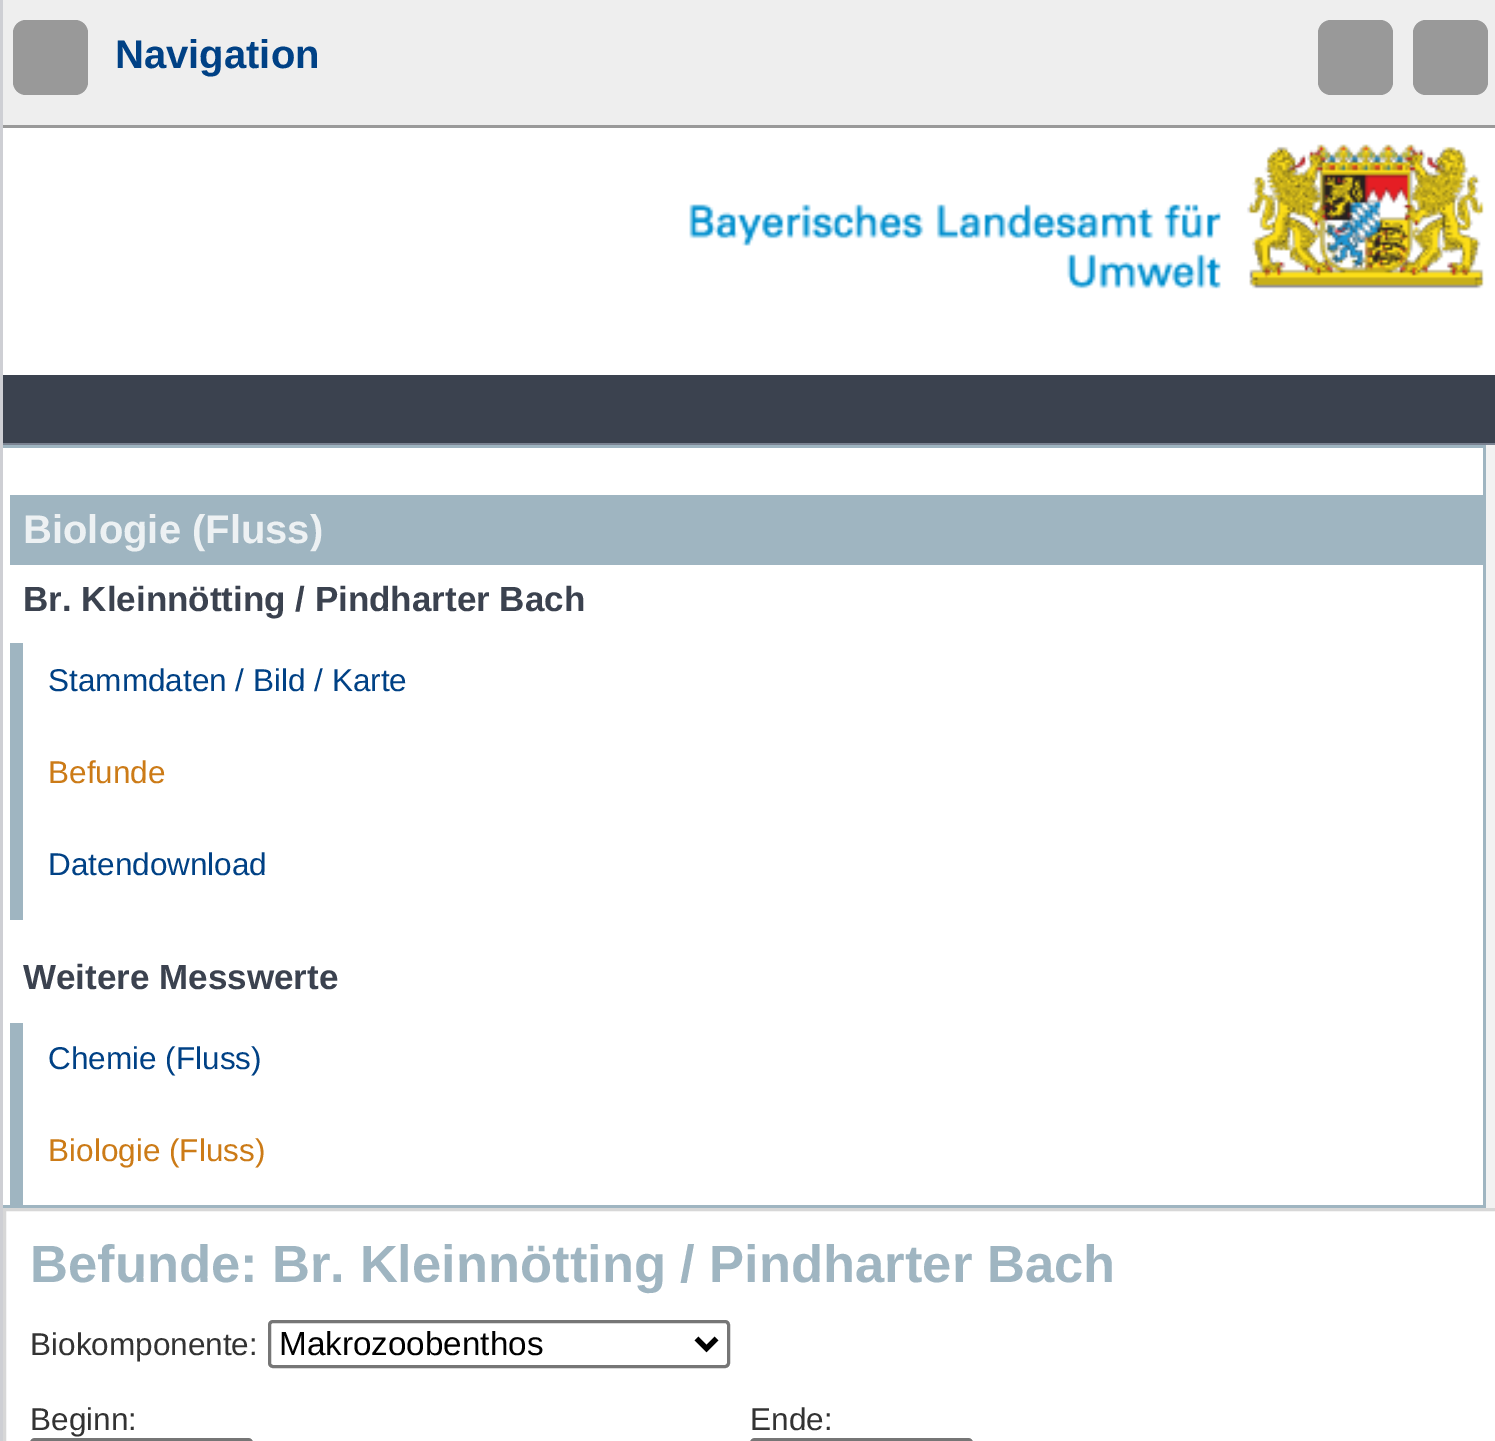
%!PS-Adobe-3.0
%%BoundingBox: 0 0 1495 1441
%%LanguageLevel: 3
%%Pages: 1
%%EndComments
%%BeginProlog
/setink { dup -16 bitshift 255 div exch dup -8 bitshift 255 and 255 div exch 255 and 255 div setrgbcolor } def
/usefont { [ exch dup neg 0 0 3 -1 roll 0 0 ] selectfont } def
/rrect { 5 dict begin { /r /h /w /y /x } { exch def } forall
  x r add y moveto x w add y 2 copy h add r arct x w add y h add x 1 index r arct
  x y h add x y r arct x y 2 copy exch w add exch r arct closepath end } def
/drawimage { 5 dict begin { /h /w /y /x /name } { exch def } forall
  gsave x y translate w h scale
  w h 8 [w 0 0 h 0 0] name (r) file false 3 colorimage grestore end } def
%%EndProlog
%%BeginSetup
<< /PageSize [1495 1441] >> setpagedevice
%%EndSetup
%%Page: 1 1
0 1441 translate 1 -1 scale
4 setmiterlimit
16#FFFFFF setink
0 0 1495 1441 rectfill
[
    [0 0 3 1441 16#CECFD4]
    [3 0 1492 125 16#EEEEEE]
    [3 125 1492 3 16#999999]
] { aload pop setink rectfill } forall
13 20 75 75 13 rrect fill
/LiberationSans-Bold 40 usefont
16#004185 setink
115 68 moveto (Navigation) show
16#999999 setink
1318 20 75 75 13 rrect fill
1413 20 75 75 13 rrect fill
(img1.raw) 689 144 795 145 drawimage
[
    [3 375 1492 68 16#3B424F]
    [3 443 1492 2 16#7A8291]
    [1486 445 9 763 16#F2F2F2]
    [3 445 1482 3 16#9FB5C1]
    [1483 445 3 763 16#9FB5C1]
    [3 1205 1482 3 16#9FB5C1]
    [10 495 1473 70 16#9FB5C1]
] { aload pop setink rectfill } forall
16#EDF1F3 setink
23 543 moveto (Biologie \(Fluss\)) show
/LiberationSans-Bold 35 usefont
16#3B424F setink
23 611 moveto (Br. Kleinnötting / Pindharter Bach) show
16#9FB5C1 setink
10 643 13 277 rectfill
/LiberationSans-Regular 31.5 usefont
16#004185 setink
48 691 moveto (Stammdaten / Bild / Karte) show
16#CC7B17 setink
48 783 moveto (Befunde) show
16#004185 setink
48 875 moveto (Datendownload) show
/LiberationSans-Bold 35 usefont
16#3B424F setink
23 989 moveto (Weitere Messwerte) show
16#9FB5C1 setink
10 1023 13 182 rectfill
/LiberationSans-Regular 31.5 usefont
16#004185 setink
48 1069 moveto (Chemie \(Fluss\)) show
16#CC7B17 setink
48 1161 moveto (Biologie \(Fluss\)) show
16#D7D7D7 setink
3 setlinewidth
4.5 1209.5 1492 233 rectstroke
/LiberationSans-Bold 52.5 usefont
16#9FB5C1 setink
30 1282 moveto (Befunde: Br. Kleinnötting / Pindharter Bach) show
/LiberationSans-Regular 31.5 usefont
16#333333 setink
30 1355 moveto (Biokomponente:) show
16#767676 setink
269.5 1321.5 459 45 3.5 rrect stroke
16#000000 setink
5 setlinewidth
696.5 1338.5 moveto 706.5 1348.5 lineto 716.5 1338.5 lineto stroke
/LiberationSans-Regular 33.25 usefont
279 1355 moveto (Makrozoobenthos) show
/LiberationSans-Regular 31.5 usefont
16#333333 setink
30 1430 moveto (Beginn:) show
16#767676 setink
3 setlinewidth
31.5 1439.5 220 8 3.5 rrect stroke
16#333333 setink
750 1430 moveto (Ende:) show
16#767676 setink
751.5 1439.5 220 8 3.5 rrect stroke
showpage
%%EOF
